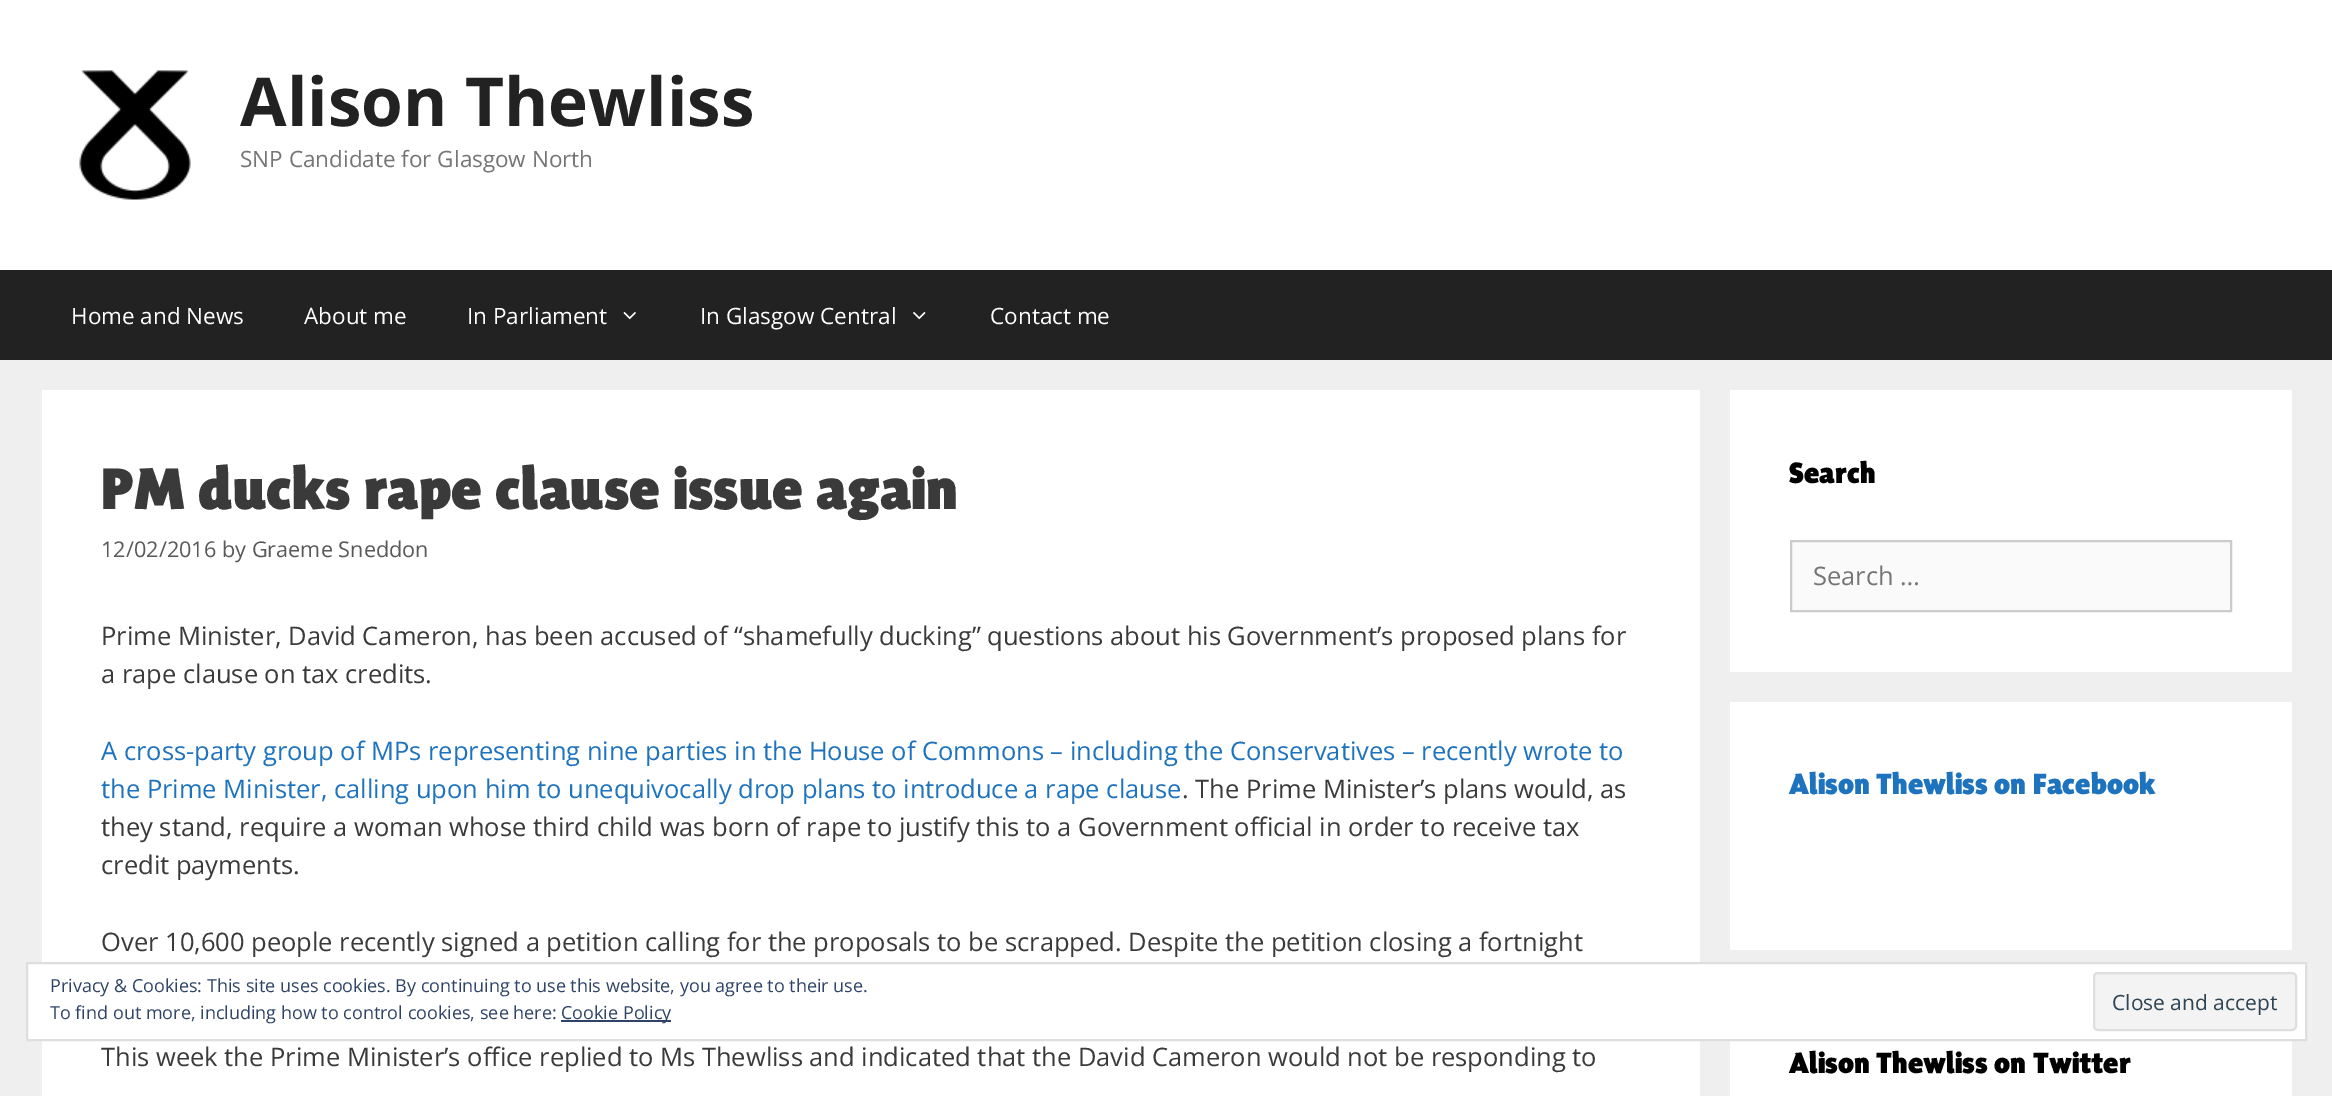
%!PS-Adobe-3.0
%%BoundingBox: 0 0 2332 1096
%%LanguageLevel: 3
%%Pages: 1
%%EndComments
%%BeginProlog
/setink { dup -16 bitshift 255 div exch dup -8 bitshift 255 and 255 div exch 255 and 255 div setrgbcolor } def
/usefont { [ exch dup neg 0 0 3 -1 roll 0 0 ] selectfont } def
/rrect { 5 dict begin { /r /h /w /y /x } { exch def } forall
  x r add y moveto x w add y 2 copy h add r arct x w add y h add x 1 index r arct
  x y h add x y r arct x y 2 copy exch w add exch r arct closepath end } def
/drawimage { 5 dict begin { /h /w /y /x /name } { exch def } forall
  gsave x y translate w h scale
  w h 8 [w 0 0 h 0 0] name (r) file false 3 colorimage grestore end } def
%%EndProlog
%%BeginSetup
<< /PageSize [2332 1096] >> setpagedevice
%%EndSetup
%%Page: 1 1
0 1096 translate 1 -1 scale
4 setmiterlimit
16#EFEFEF setink
0 0 2332 1096 rectfill
16#FFFFFF setink
0 0 2332 270 rectfill
(img1.raw) 79 70 112 130 drawimage
/OpenSans-Bold 67.5 usefont
16#222222 setink
240 126 moveto (Alison Thewliss) show
/OpenSans-Regular 22.5 usefont
16#757575 setink
240 167 moveto (SNP Candidate for Glasgow North) show
16#222222 setink
0 270 2332 90 rectfill
16#FFFFFF setink
[
    [(Home and News) 71 324]
    [(About me) 304 324]
    [(In Parliament) 467 324]
] { aload pop moveto show } forall
(img2.raw) 623 312 13 8 drawimage
700 324 moveto (In Glasgow Central) show
(img3.raw) 913 312 13 8 drawimage
990 324 moveto (Contact me) show
42 390 1658 706 rectfill
/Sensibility-Black 60 usefont
16#3A3A3A setink
101 509 moveto (PM ducks rape clause issue again) show
/OpenSans-Regular 21.7 usefont
16#595959 setink
101 557 moveto (12/02/2016 by Graeme Sneddon) show
/OpenSans-Regular 25.5 usefont
16#3A3A3A setink
101 645 moveto (Prime Minister, David Cameron, has been accused of “shamefully ducking” questions about his Government’s proposed plans for) show
101 683 moveto (a rape clause on tax credits.) show
16#1E73BE setink
101 760 moveto (A cross-party group of MPs representing nine parties in the House of Commons – including the Conservatives – recently wrote to) show
101 798 moveto (the Prime Minister, calling upon him to unequivocally drop plans to introduce a rape clause) show
16#3A3A3A setink
[
    [(. The Prime Minister’s plans would, as) 1182 798]
    [(they stand, require a woman whose third child was born of rape to justify this to a Government official in order to receive tax) 101 836]
    [(credit payments.) 101 874]
    [(Over 10,600 people recently signed a petition calling for the proposals to be scrapped. Despite the petition closing a fortnight) 101 951]
    [(This week the Prime Minister’s office replied to Ms Thewliss and indicated that the David Cameron would not be responding to) 101 1066]
] { aload pop moveto show } forall
16#FFFFFF setink
1730 390 562 282 rectfill
/Sensibility-Black 30 usefont
16#000000 setink
1789 483 moveto (Search) show
16#FAFAFA setink
1791 541 moveto 2231 541 lineto 2231 611 lineto 1791 611 lineto closepath gsave fill grestore
16#CCCCCC setink
2 setlinewidth
stroke
/OpenSans-Regular 25.5 usefont
16#757575 setink
1813 585 moveto (Search …) show
16#FFFFFF setink
1730 702 562 248 rectfill
/Sensibility-Black 30 usefont
16#1E73BE setink
1789 794 moveto (Alison Thewliss on Facebook) show
16#FFFFFF setink
1730 1041 562 55 rectfill
16#000000 setink
1789 1073 moveto (Alison Thewliss on Twitter) show
16#FFFFFF setink
27 963 moveto 2306 963 lineto 2306 1040 lineto 27 1040 lineto closepath gsave fill grestore
16#DEDEDE setink
stroke
/OpenSans-Regular 18 usefont
16#2E4467 setink
50 992 moveto (Privacy & Cookies: This site uses cookies. By continuing to use this website, you agree to their use.) show
50 1019 moveto (To find out more, including how to control cookies, see here:) show
561 1020 110 2 rectfill
561 1019 moveto (Cookie Policy) show
16#F3F3F3 setink
2094 973 202 57 4 rrect gsave fill grestore
16#DEDEDE setink
stroke
/OpenSans-Regular 21 usefont
16#2E4453 setink
2112 1010 moveto (Close and accept) show
showpage
%%EOF
